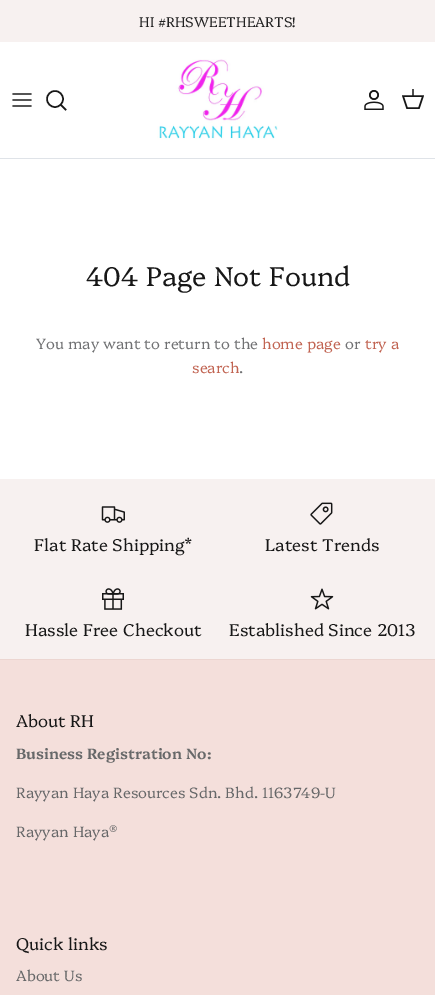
%!PS-Adobe-3.0
%%BoundingBox: 0 0 435 995
%%LanguageLevel: 3
%%Pages: 1
%%EndComments
%%BeginProlog
/setink { dup -16 bitshift 255 div exch dup -8 bitshift 255 and 255 div exch 255 and 255 div setrgbcolor } def
/usefont { [ exch dup neg 0 0 3 -1 roll 0 0 ] selectfont } def
/setalpha { dup .setfillconstantalpha .setstrokeconstantalpha } def
/disc { newpath 0 360 arc closepath } def
/drawimage { 5 dict begin { /h /w /y /x /name } { exch def } forall
  gsave x y translate w h scale
  w h 8 [w 0 0 h 0 0] name (r) file false 3 colorimage grestore end } def
%%EndProlog
%%BeginSetup
<< /PageSize [435 995] /PageUsesTransparency true >> setpagedevice
%%EndSetup
%%Page: 1 1
0 .pushpdf14devicefilter
0 995 translate 1 -1 scale
4 setmiterlimit
16#FFFFFF setink
0 0 435 995 rectfill
16#F7F1F0 setink
0 0 435 42 rectfill
/Platypi-Light 14 usefont
16#212121 setink
139 27 moveto (HI #RHSWEETHEARTS!) show
16#DFE3E8 setink
0 158 435 1 rectfill
(img1.raw) 12 93 20 14 drawimage
16#171717 setink
1.5 setlinewidth
55 99 8 disc stroke
2 setlinecap
61 105 moveto 65.5 109.5 lineto stroke
(img2.raw) 157 59 121 81 drawimage
(img3.raw) 364 90 20 20 drawimage
0 setlinecap
403 96 moveto 423 96 lineto 419 108 lineto 407 108 lineto closepath stroke
0.75 setalpha
412 89 2 8 rectfill
/Platypi-Light 27 usefont
1 setalpha
86 286 moveto (404 Page Not Found) show
/Platypi-Light 15 usefont
16#707173 setink
36 349 moveto (You may want to return to the) show
16#C16452 setink
262 349 moveto (home page) show
16#707173 setink
345 349 moveto (or) show
16#C16452 setink
365 349 moveto (try a) show
192 373 moveto (search) show
16#707173 setink
239 373 moveto (.) show
16#F4DFDB setink
0 660 435 335 rectfill
16#F7F1F0 setink
0 479 435 180 rectfill
(img4.raw) 101 506 24 17 drawimage
/Platypi-Light 17 usefont
16#171717 setink
34 551 moveto (Flat Rate Shipping*) show
(img5.raw) 310 502 23 23 drawimage
265 551 moveto (Latest Trends) show
(img6.raw) 102 588 22 22 drawimage
25 636 moveto (Hassle Free Checkout) show
(img7.raw) 310 588 24 22 drawimage
229 636 moveto (Established Since 2013) show
16#ECD6D1 setink
0 659 435 1 rectfill
16#171717 setink
16 727 moveto (About RH) show
/Platypi-SemiBold 15 usefont
16#676869 setink
16 759 moveto (Business Registration No:) show
/Platypi-Light 15 usefont
16 798 moveto (Rayyan Haya Resources Sdn. Bhd. 1163749-U) show
16 837 moveto (Rayyan Haya®) show
/Platypi-Light 17 usefont
16#171717 setink
16 950 moveto (Quick links) show
/Platypi-Light 15 usefont
16#676869 setink
16 981 moveto (About Us) show
.poppdf14devicefilter showpage
%%EOF
